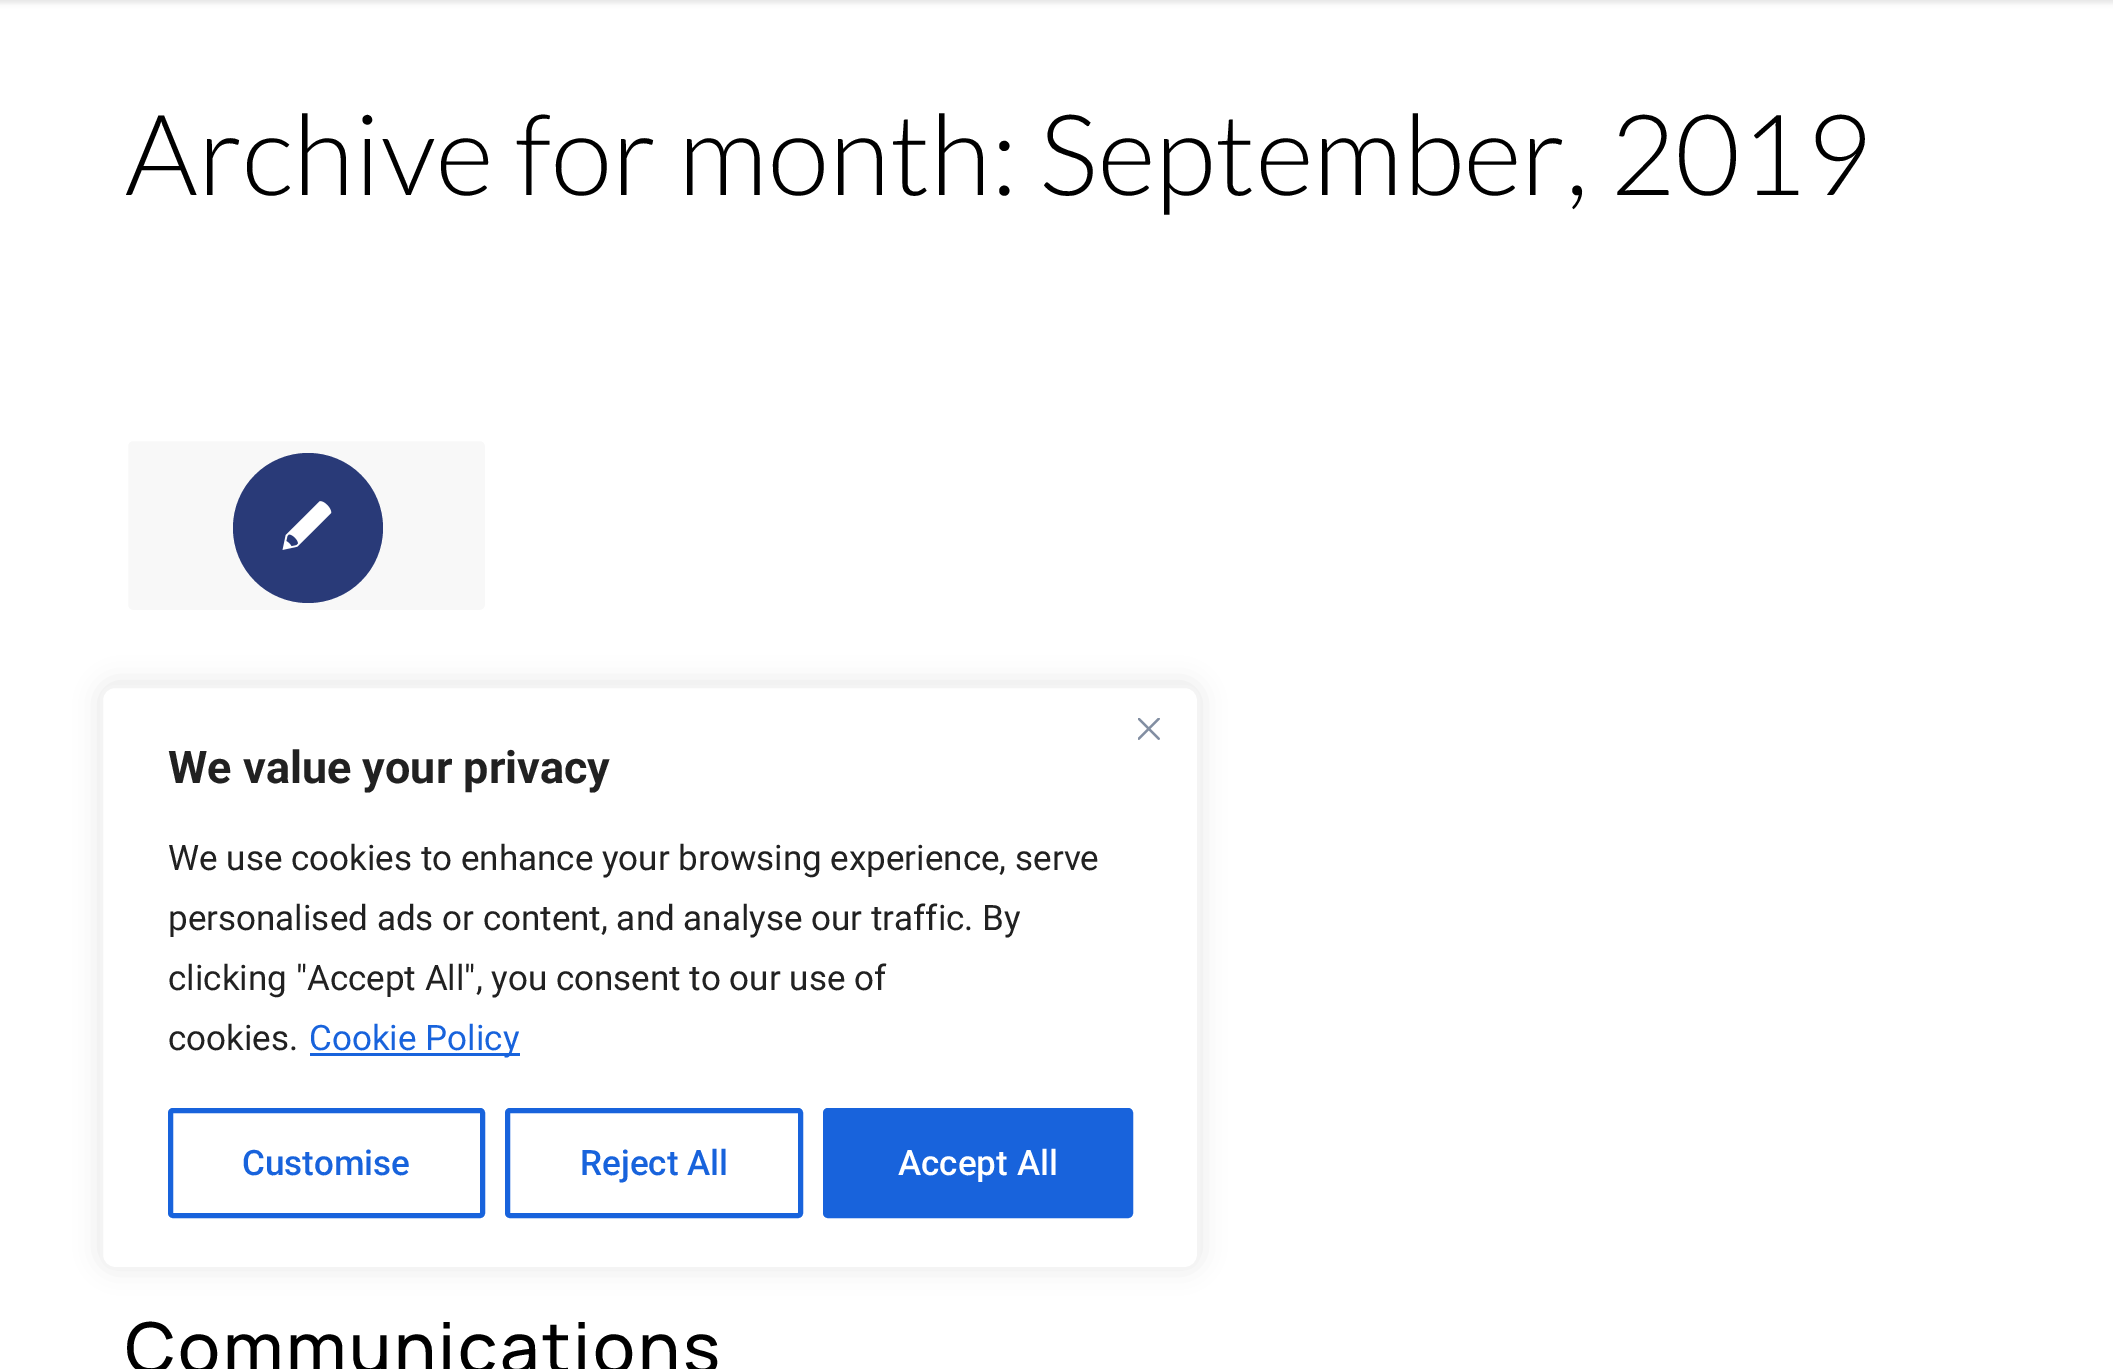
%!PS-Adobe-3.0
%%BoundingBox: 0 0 2113 1369
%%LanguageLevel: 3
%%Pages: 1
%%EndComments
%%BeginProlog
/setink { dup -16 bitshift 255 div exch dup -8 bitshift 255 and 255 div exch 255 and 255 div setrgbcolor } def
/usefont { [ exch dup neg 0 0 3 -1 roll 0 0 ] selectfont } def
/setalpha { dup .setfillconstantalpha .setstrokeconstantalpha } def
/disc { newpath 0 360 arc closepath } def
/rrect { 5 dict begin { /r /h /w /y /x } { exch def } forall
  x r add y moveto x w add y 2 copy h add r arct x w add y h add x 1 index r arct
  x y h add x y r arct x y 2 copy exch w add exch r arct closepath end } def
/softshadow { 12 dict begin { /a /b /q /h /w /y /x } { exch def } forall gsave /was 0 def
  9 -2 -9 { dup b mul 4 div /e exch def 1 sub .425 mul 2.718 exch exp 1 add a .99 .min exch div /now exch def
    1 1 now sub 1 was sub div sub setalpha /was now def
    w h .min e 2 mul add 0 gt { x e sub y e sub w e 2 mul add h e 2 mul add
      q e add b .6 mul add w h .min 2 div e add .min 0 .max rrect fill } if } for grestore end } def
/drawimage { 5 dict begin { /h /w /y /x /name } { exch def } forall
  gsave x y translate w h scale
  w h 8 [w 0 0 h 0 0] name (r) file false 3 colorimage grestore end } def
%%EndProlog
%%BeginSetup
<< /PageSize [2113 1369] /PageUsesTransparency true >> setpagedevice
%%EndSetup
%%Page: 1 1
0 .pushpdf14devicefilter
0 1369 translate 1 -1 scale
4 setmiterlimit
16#FFFFFF setink
0 0 2113 1369 rectfill
16#000000 setink
-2 -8 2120 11 0 2.5 0.1 softshadow
/Lato-Light 112.5 usefont
125 195 moveto (Archive for month: September, 2019) show
16#F8F8F8 setink
126.5 439.5 360 172 6.5 rrect gsave fill grestore
16#FFFFFF setink
3 setlinewidth
stroke
16#293A78 setink
308 528 75 disc fill
(img1.raw) 282 501 50 49 drawimage
/Manrope-Medium 70 usefont
16#000000 setink
125 1373 moveto 2.5 0 (Communications) ashow
16#ACABAB setink
100 683 1100 585 15 12.5 0.3 softshadow
16#FFFFFF setink
101.5 686.5 1097 582 13.5 rrect gsave fill grestore
16#F4F4F4 setink
stroke
(img2.raw) 1138 718 22 22 drawimage
/Roboto-Bold 45 usefont
16#212121 setink
168 783 moveto (We value your privacy) show
/Roboto-Regular 35 usefont
[
    [(We use cookies to enhance your browsing experience, serve) 168 870]
    [(personalised ads or content, and analyse our traffic. By) 168 930]
    [(clicking "Accept All", you consent to our use of) 168 990]
    [(cookies.) 168 1050]
] { aload pop moveto show } forall
16#1863DC setink
310 1053 210 3 rectfill
309 1050 moveto (Cookie Policy) show
5 setlinewidth
170.5 1110.5 312 105 2.5 rrect stroke
/Roboto-Medium 35 usefont
242 1175 moveto (Customise) show
507.5 1110.5 293 105 2.5 rrect stroke
580 1175 moveto (Reject All) show
825.5 1110.5 305 105 2.5 rrect gsave fill grestore
stroke
16#FFFFFF setink
898 1175 moveto (Accept All) show
.poppdf14devicefilter showpage
%%EOF
